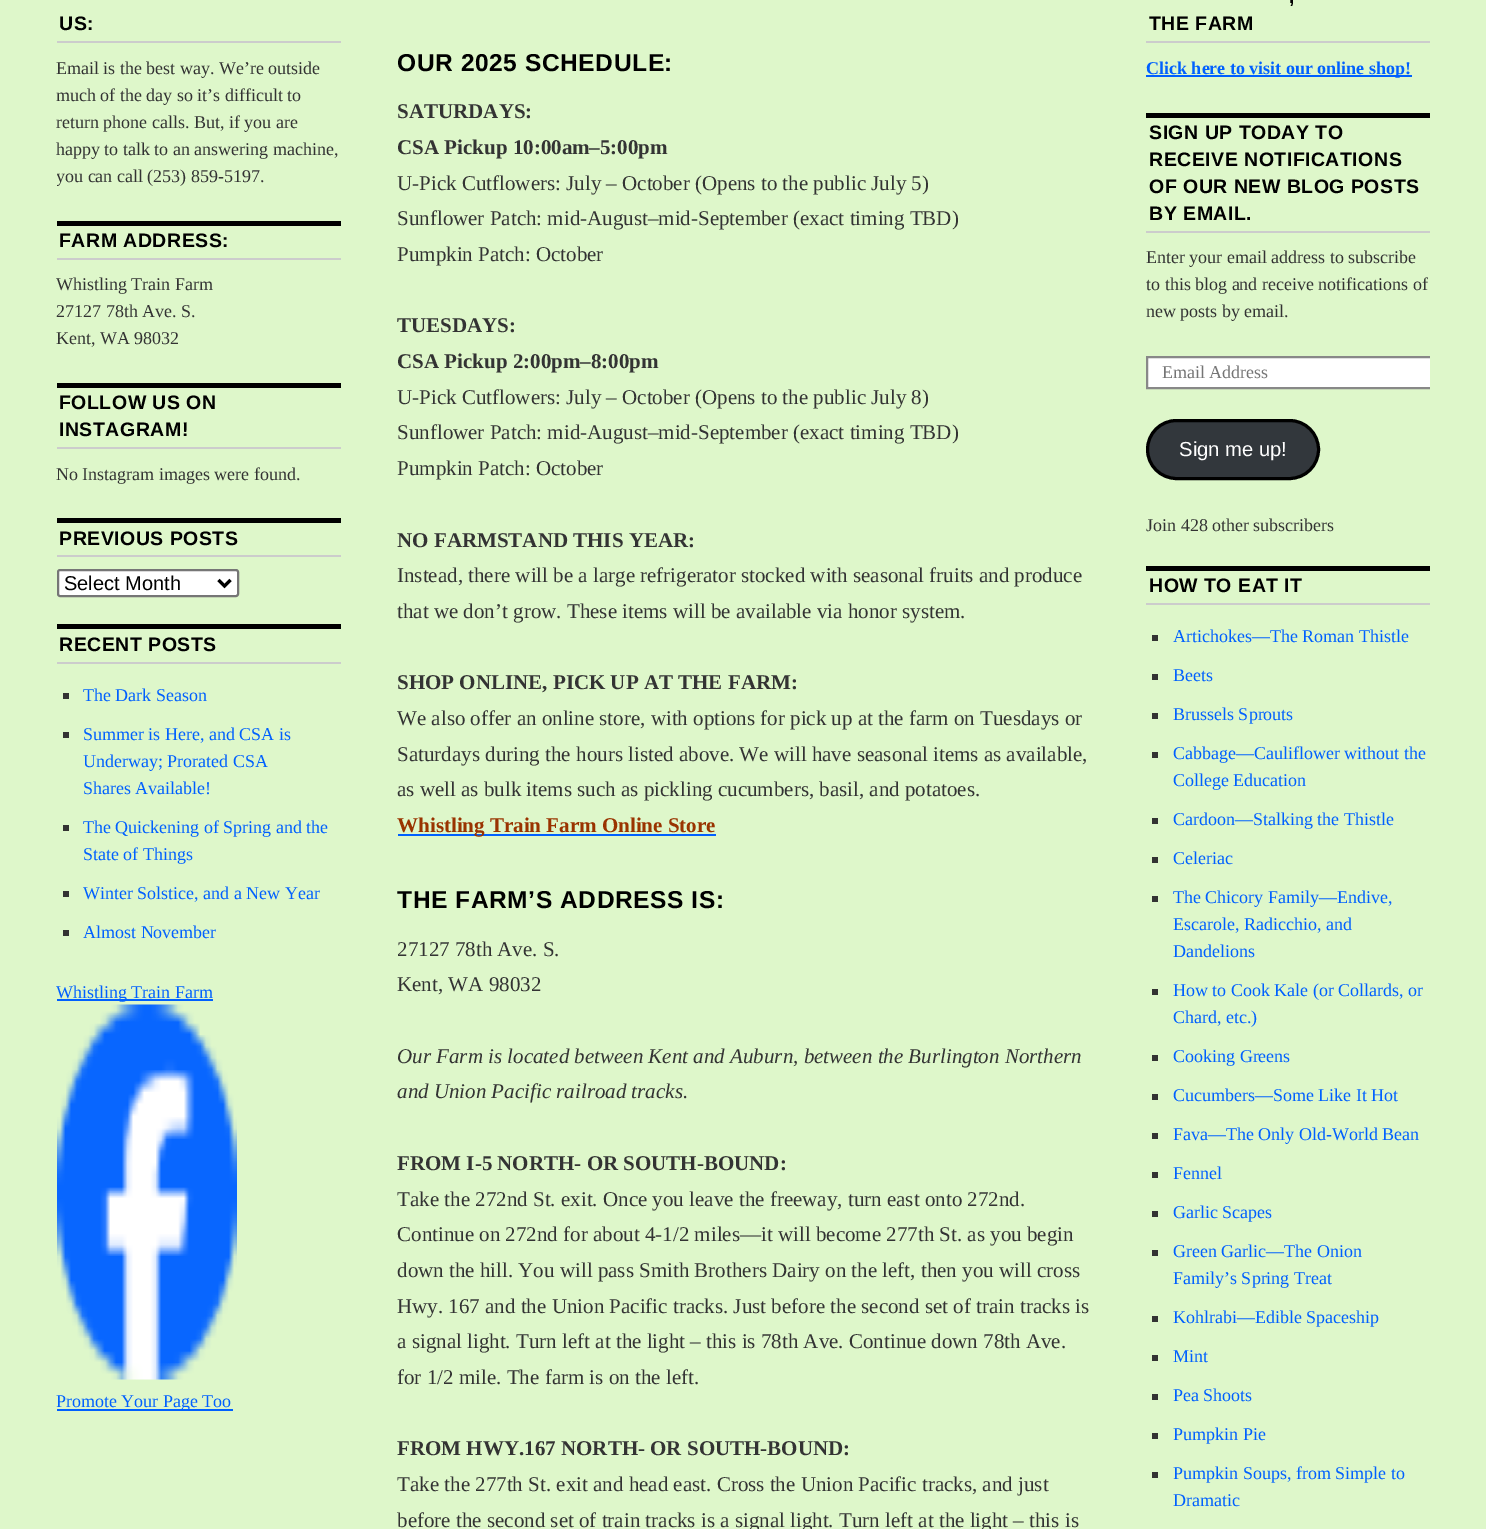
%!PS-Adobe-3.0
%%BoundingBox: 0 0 1486 1529
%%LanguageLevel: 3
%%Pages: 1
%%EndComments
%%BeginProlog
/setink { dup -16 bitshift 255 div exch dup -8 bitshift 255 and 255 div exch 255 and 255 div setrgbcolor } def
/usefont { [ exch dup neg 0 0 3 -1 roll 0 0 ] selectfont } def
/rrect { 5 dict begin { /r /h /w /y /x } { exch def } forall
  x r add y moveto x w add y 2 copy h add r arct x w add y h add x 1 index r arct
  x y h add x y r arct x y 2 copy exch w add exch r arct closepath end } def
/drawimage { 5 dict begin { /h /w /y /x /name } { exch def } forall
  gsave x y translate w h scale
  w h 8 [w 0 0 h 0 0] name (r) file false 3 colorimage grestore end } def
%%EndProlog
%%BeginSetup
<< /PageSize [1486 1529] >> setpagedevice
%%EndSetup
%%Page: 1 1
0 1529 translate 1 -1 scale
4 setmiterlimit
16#DEF7CA setink
0 0 1486 1529 rectfill
16#CCCCCC setink
57 41 284 2 rectfill
/LiberationSans-Bold 19.5 usefont
16#000000 setink
59 30 moveto 0.5 0 (US:) ashow
/LiberationSerif-Regular 18 usefont
16#333333 setink
[
    [(Email is the best way. We’re outside) 56 74]
    [(much of the day so it’s difficult to) 56 101]
    [(return phone calls. But, if you are) 56 128]
    [(happy to talk to an answering machine,) 56 155]
] { aload pop moveto show } forall
gsave
57 0 284 1442 rectclip
56 182 moveto (you can call \(253\) 859-5197.) show
grestore
16#000000 setink
57 221 284 5 rectfill
16#CCCCCC setink
57 258 284 2 rectfill
/LiberationSans-Bold 19.5 usefont
16#000000 setink
59 247 moveto 0.5 0 (FARM ADDRESS:) ashow
/LiberationSerif-Regular 18 usefont
16#333333 setink
[
    [(Whistling Train Farm) 56 290]
    [(27127 78th Ave. S.) 56 317]
    [(Kent, WA 98032) 56 344]
] { aload pop moveto show } forall
16#000000 setink
57 383 284 5 rectfill
16#CCCCCC setink
57 447 284 2 rectfill
/LiberationSans-Bold 19.5 usefont
16#000000 setink
59 409 moveto 0.5 0 (FOLLOW US ON) ashow
59 436 moveto 0.5 0 (INSTAGRAM!) ashow
/LiberationSerif-Regular 18 usefont
16#333333 setink
56 480 moveto (No Instagram images were found.) show
16#000000 setink
57 518 284 5 rectfill
16#CCCCCC setink
57 555 284 2 rectfill
/LiberationSans-Bold 19.5 usefont
16#000000 setink
59 545 moveto 0.5 0 (PREVIOUS POSTS) ashow
16#FFFFFF setink
58 570 180 26 2 rrect gsave fill grestore
16#767676 setink
2 setlinewidth
stroke
16#000000 setink
3 setlinewidth
218.5 580 moveto 224.5 586 lineto 230.5 580 lineto stroke
/LiberationSans-Regular 20 usefont
64 590 moveto (Select Month) show
57 624 284 5 rectfill
16#CCCCCC setink
57 662 284 2 rectfill
/LiberationSans-Bold 19.5 usefont
16#000000 setink
59 651 moveto 0.5 0 (RECENT POSTS) ashow
16#333333 setink
63 693 6 6 rectfill
/LiberationSerif-Regular 18 usefont
16#0060FF setink
83 701 moveto (The Dark Season) show
16#333333 setink
63 732 6 6 rectfill
16#0060FF setink
[
    [(Summer is Here, and CSA is) 83 740]
    [(Underway; Prorated CSA) 83 767]
    [(Shares Available!) 83 794]
] { aload pop moveto show } forall
16#333333 setink
63 825 6 6 rectfill
16#0060FF setink
83 833 moveto (The Quickening of Spring and the) show
83 860 moveto (State of Things) show
16#333333 setink
63 891 6 6 rectfill
16#0060FF setink
83 899 moveto (Winter Solstice, and a New Year) show
16#333333 setink
63 930 6 6 rectfill
16#0060FF setink
83 938 moveto (Almost November) show
57 999 156 2 rectfill
56 998 moveto (Whistling Train Farm) show
(img1.raw) 57 1004 180 376 drawimage
57 1409 176 2 rectfill
56 1407 moveto (Promote Your Page Too) show
/LiberationSans-Bold 24.5 usefont
16#000000 setink
397 71 moveto 0.6 0 (OUR 2025 SCHEDULE:) ashow
/LiberationSerif-Bold 21 usefont
16#333333 setink
397 118 moveto (SATURDAYS:) show
397 154 moveto (CSA Pickup 10:00am–5:00pm) show
/LiberationSerif-Regular 21 usefont
[
    [(U-Pick Cutflowers: July – October \(Opens to the public July 5\)) 397 190]
    [(Sunflower Patch: mid-August–mid-September \(exact timing TBD\)) 397 225]
    [(Pumpkin Patch: October) 397 261]
] { aload pop moveto show } forall
/LiberationSerif-Bold 21 usefont
397 332 moveto (TUESDAYS:) show
397 368 moveto (CSA Pickup 2:00pm–8:00pm) show
/LiberationSerif-Regular 21 usefont
[
    [(U-Pick Cutflowers: July – October \(Opens to the public July 8\)) 397 404]
    [(Sunflower Patch: mid-August–mid-September \(exact timing TBD\)) 397 439]
    [(Pumpkin Patch: October) 397 475]
] { aload pop moveto show } forall
/LiberationSerif-Bold 21 usefont
397 547 moveto (NO FARMSTAND THIS YEAR:) show
/LiberationSerif-Regular 21 usefont
397 582 moveto (Instead, there will be a large refrigerator stocked with seasonal fruits and produce) show
397 618 moveto (that we don’t grow. These items will be available via honor system.) show
/LiberationSerif-Bold 21 usefont
397 689 moveto (SHOP ONLINE, PICK UP AT THE FARM:) show
/LiberationSerif-Regular 21 usefont
[
    [(We also offer an online store, with options for pick up at the farm on Tuesdays or) 397 725]
    [(Saturdays during the hours listed above. We will have seasonal items as available,) 397 761]
    [(as well as bulk items such as pickling cucumbers, basil, and potatoes.) 397 796]
] { aload pop moveto show } forall
16#0060FF setink
398 834 318 2 rectfill
/LiberationSerif-Bold 21 usefont
16#993300 setink
397 832 moveto (Whistling Train Farm Online Store) show
/LiberationSans-Bold 24.5 usefont
16#000000 setink
397 908 moveto 0.6 0 (THE FARM’S ADDRESS IS:) ashow
/LiberationSerif-Regular 21 usefont
16#333333 setink
397 956 moveto (27127 78th Ave. S.) show
397 991 moveto (Kent, WA 98032) show
/LiberationSerif-Italic 21 usefont
397 1063 moveto (Our Farm is located between Kent and Auburn, between the Burlington Northern) show
397 1098 moveto (and Union Pacific railroad tracks.) show
/LiberationSerif-Bold 21 usefont
397 1170 moveto (FROM I-5 NORTH- OR SOUTH-BOUND:) show
/LiberationSerif-Regular 21 usefont
[
    [(Take the 272nd St. exit. Once you leave the freeway, turn east onto 272nd.) 397 1206]
    [(Continue on 272nd for about 4-1/2 miles—it will become 277th St. as you begin) 397 1241]
    [(down the hill. You will pass Smith Brothers Dairy on the left, then you will cross) 397 1277]
    [(Hwy. 167 and the Union Pacific tracks. Just before the second set of train tracks is) 397 1313]
    [(a signal light. Turn left at the light – this is 78th Ave. Continue down 78th Ave.) 397 1348]
    [(for 1/2 mile. The farm is on the left.) 397 1384]
] { aload pop moveto show } forall
/LiberationSerif-Bold 21 usefont
397 1455 moveto (FROM HWY.167 NORTH- OR SOUTH-BOUND:) show
/LiberationSerif-Regular 21 usefont
397 1491 moveto (Take the 277th St. exit and head east. Cross the Union Pacific tracks, and just) show
397 1527 moveto (before the second set of train tracks is a signal light. Turn left at the light – this is) show
16#CCCCCC setink
1146 41 284 2 rectfill
/LiberationSans-Bold 19.5 usefont
16#000000 setink
1289 3 moveto 0.5 0 (,) ashow
1149 30 moveto 0.5 0 (THE FARM) ashow
16#0060FF setink
1146 75 266 2 rectfill
/LiberationSerif-Bold 18 usefont
1146 74 moveto (Click here to visit our online shop!) show
16#000000 setink
1146 113 284 5 rectfill
16#CCCCCC setink
1146 231 284 2 rectfill
/LiberationSans-Bold 19.5 usefont
16#000000 setink
1149 139 moveto 0.5 0 (SIGN UP TODAY TO) ashow
1149 166 moveto 0.5 0 (RECEIVE NOTIFICATIONS) ashow
1149 193 moveto 0.5 0 (OF OUR NEW BLOG POSTS) ashow
1149 220 moveto 0.5 0 (BY EMAIL.) ashow
/LiberationSerif-Regular 18 usefont
16#333333 setink
[
    [(Enter your email address to subscribe) 1146 263]
    [(to this blog and receive notifications of) 1146 290]
    [(new posts by email.) 1146 317]
] { aload pop moveto show } forall
16#FFFFFF setink
1148 358 282 29 rectfill
gsave
1146 0 284 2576 rectclip
16#888888 setink
2 setlinewidth
1147 357 301 31 rectstroke
grestore
16#757575 setink
1162 378 moveto (Email Address) show
16#32373C setink
1147.5 420.5 171 58 29 rrect gsave fill grestore
16#000000 setink
stroke
/LiberationSans-Regular 20.25 usefont
16#FFFFFF setink
1179 456 moveto (Sign me up!) show
/LiberationSerif-Regular 18 usefont
16#333333 setink
1146 531 moveto (Join 428 other subscribers) show
16#000000 setink
1146 566 284 5 rectfill
16#CCCCCC setink
1146 603 284 2 rectfill
/LiberationSans-Bold 19.5 usefont
16#000000 setink
1149 592 moveto 0.5 0 (HOW TO EAT IT) ashow
16#333333 setink
1152 635 6 6 rectfill
/LiberationSerif-Regular 18 usefont
16#0060FF setink
1173 642 moveto (Artichokes—The Roman Thistle) show
16#333333 setink
1152 674 6 6 rectfill
16#0060FF setink
1173 681 moveto (Beets) show
16#333333 setink
1152 713 6 6 rectfill
16#0060FF setink
1173 720 moveto (Brussels Sprouts) show
16#333333 setink
1152 752 6 6 rectfill
16#0060FF setink
1173 759 moveto (Cabbage—Cauliflower without the) show
1173 786 moveto (College Education) show
16#333333 setink
1152 818 6 6 rectfill
16#0060FF setink
1173 825 moveto (Cardoon—Stalking the Thistle) show
16#333333 setink
1152 857 6 6 rectfill
16#0060FF setink
1173 864 moveto (Celeriac) show
16#333333 setink
1152 896 6 6 rectfill
16#0060FF setink
[
    [(The Chicory Family—Endive,) 1173 903]
    [(Escarole, Radicchio, and) 1173 930]
    [(Dandelions) 1173 957]
] { aload pop moveto show } forall
16#333333 setink
1152 989 6 6 rectfill
16#0060FF setink
1173 996 moveto (How to Cook Kale \(or Collards, or) show
1173 1023 moveto (Chard, etc.\)) show
16#333333 setink
1152 1055 6 6 rectfill
16#0060FF setink
1173 1062 moveto (Cooking Greens) show
16#333333 setink
1152 1094 6 6 rectfill
16#0060FF setink
1173 1101 moveto (Cucumbers—Some Like It Hot) show
16#333333 setink
1152 1133 6 6 rectfill
16#0060FF setink
1173 1140 moveto (Fava—The Only Old-World Bean) show
16#333333 setink
1152 1172 6 6 rectfill
16#0060FF setink
1173 1179 moveto (Fennel) show
16#333333 setink
1152 1211 6 6 rectfill
16#0060FF setink
1173 1218 moveto (Garlic Scapes) show
16#333333 setink
1152 1250 6 6 rectfill
16#0060FF setink
1173 1257 moveto (Green Garlic—The Onion) show
1173 1284 moveto (Family’s Spring Treat) show
16#333333 setink
1152 1316 6 6 rectfill
16#0060FF setink
1173 1323 moveto (Kohlrabi—Edible Spaceship) show
16#333333 setink
1152 1355 6 6 rectfill
16#0060FF setink
1173 1362 moveto (Mint) show
16#333333 setink
1152 1394 6 6 rectfill
16#0060FF setink
1173 1401 moveto (Pea Shoots) show
16#333333 setink
1152 1433 6 6 rectfill
16#0060FF setink
1173 1440 moveto (Pumpkin Pie) show
16#333333 setink
1152 1472 6 6 rectfill
16#0060FF setink
1173 1479 moveto (Pumpkin Soups, from Simple to) show
1173 1506 moveto (Dramatic) show
showpage
%%EOF
